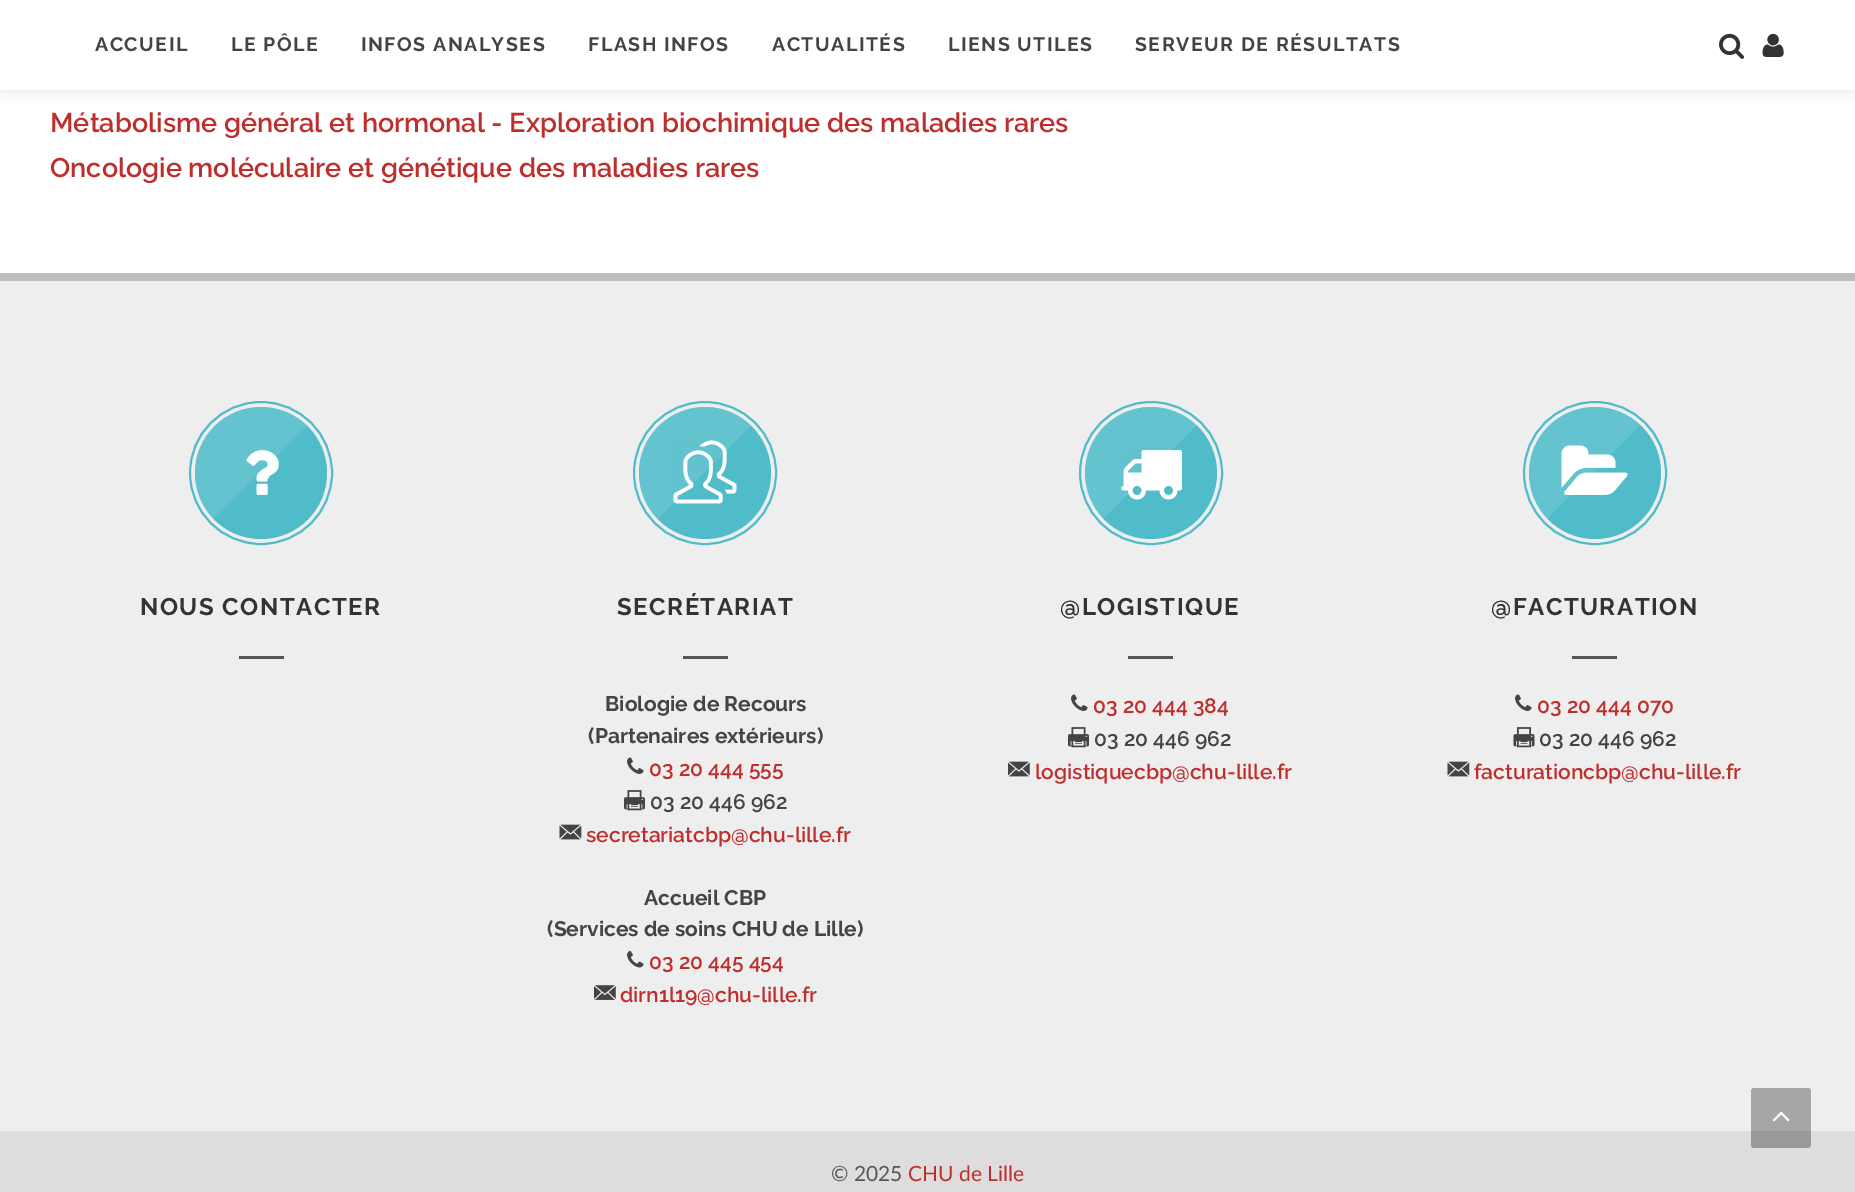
%!PS-Adobe-3.0
%%BoundingBox: 0 0 1855 1192
%%LanguageLevel: 3
%%Pages: 1
%%EndComments
%%BeginProlog
/setink { dup -16 bitshift 255 div exch dup -8 bitshift 255 and 255 div exch 255 and 255 div setrgbcolor } def
/usefont { [ exch dup neg 0 0 3 -1 roll 0 0 ] selectfont } def
/setalpha { dup .setfillconstantalpha .setstrokeconstantalpha } def
/disc { newpath 0 360 arc closepath } def
/rrect { 5 dict begin { /r /h /w /y /x } { exch def } forall
  x r add y moveto x w add y 2 copy h add r arct x w add y h add x 1 index r arct
  x y h add x y r arct x y 2 copy exch w add exch r arct closepath end } def
/softshadow { 12 dict begin { /a /b /q /h /w /y /x } { exch def } forall gsave /was 0 def
  9 -2 -9 { dup b mul 4 div /e exch def 1 sub .425 mul 2.718 exch exp 1 add a .99 .min exch div /now exch def
    1 1 now sub 1 was sub div sub setalpha /was now def
    w h .min e 2 mul add 0 gt { x e sub y e sub w e 2 mul add h e 2 mul add
      q e add b .6 mul add w h .min 2 div e add .min 0 .max rrect fill } if } for grestore end } def
/drawimage { 5 dict begin { /h /w /y /x /name } { exch def } forall
  gsave x y translate w h scale
  w h 8 [w 0 0 h 0 0] name (r) file false 3 colorimage grestore end } def
%%EndProlog
%%BeginSetup
<< /PageSize [1855 1192] /PageUsesTransparency true >> setpagedevice
%%EndSetup
%%Page: 1 1
0 .pushpdf14devicefilter
0 1192 translate 1 -1 scale
4 setmiterlimit
16#FFFFFF setink
0 0 1855 1192 rectfill
16#000000 setink
0 0 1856 90 0 7.5 0.1 softshadow
16#FFFFFF setink
0 0 1855 90 rectfill
/Raleway-Bold 19.5 usefont
16#444444 setink
95 51 moveto 1.5 0 (ACCUEIL) ashow
231 51 moveto 1.5 0 (LE PÔLE) ashow
361 51 moveto 1.5 0 (INFOS ANALYSES) ashow
588 51 moveto 1.5 0 (FLASH INFOS) ashow
772 51 moveto 1.5 0 (ACTUALITÉS) ashow
948 51 moveto 1.5 0 (LIENS UTILES) ashow
1135 51 moveto 1.5 0 (SERVEUR DE RÉSULTATS) ashow
(img1.raw) 1719 33 25 26 drawimage
(img2.raw) 1762 33 22 24 drawimage
/Raleway-SemiBold 27 usefont
16#BE2E2D setink
50 132 moveto (Métabolisme général et hormonal - Exploration biochimique des maladies rares) show
50 177 moveto (Oncologie moléculaire et génétique des maladies rares) show
16#EEEEEE setink
0 281 1855 850 rectfill
16#BEBEBE setink
0 273 1855 8 rectfill
16#51BCC9 setink
2 setlinewidth
261 473 71 disc stroke
261 473 66 disc fill
0.1 setalpha
16#FFFFFF setink
261 407 moveto 279 407 295 414 307 426 curveto 214 519 lineto 174 478 202 407 261 407 curveto closepath fill
1 setalpha
(img3.raw) 246 450 33 45 drawimage
/Raleway-Bold 24 usefont
16#333333 setink
140 615 moveto 1.5 0 (NOUS CONTACTER) ashow
16#555555 setink
239 656 45 3 rectfill
16#51BCC9 setink
705 473 71 disc stroke
705 473 66 disc fill
0.1 setalpha
16#FFFFFF setink
705 407 moveto 723 407 739 414 751 426 curveto 658 519 lineto 618 478 646 407 705 407 curveto closepath fill
1 setalpha
(img4.raw) 673 440 64 64 drawimage
16#333333 setink
617 615 moveto 1.5 0 (SECRÉTARIAT) ashow
16#555555 setink
683 656 45 3 rectfill
/Raleway-Bold 21 usefont
16#444444 setink
605 711 moveto (Biologie de Recours) show
588 743 moveto (\(Partenaires extérieurs\)) show
(img5.raw) 627 757 17 17 drawimage
/Raleway-SemiBold 21 usefont
16#BE2E2D setink
649 776 moveto (03 20 444 555) show
(img6.raw) 624 790 21 21 drawimage
16#444444 setink
650 809 moveto (03 20 446 962) show
(img7.raw) 559 824 23 16 drawimage
16#BE2E2D setink
586 842 moveto (secretariatcbp@chu-lille.fr) show
/Raleway-Bold 21 usefont
16#444444 setink
644 905 moveto (Accueil CBP) show
547 936 moveto (\(Services de soins CHU de Lille\)) show
(img8.raw) 627 951 17 17 drawimage
/Raleway-SemiBold 21 usefont
16#BE2E2D setink
649 969 moveto (03 20 445 454) show
(img9.raw) 594 985 22 15 drawimage
620 1002 moveto (dirn1l19@chu-lille.fr) show
16#51BCC9 setink
1151 473 71 disc stroke
1151 473 66 disc fill
0.1 setalpha
16#FFFFFF setink
1151 407 moveto 1169 407 1185 414 1197 425 curveto 1103 519 lineto 1064 478 1092 407 1151 407 curveto closepath fill
1 setalpha
(img10.raw) 1121 450 61 50 drawimage
/Raleway-Bold 24 usefont
16#333333 setink
1060 615 moveto 1.5 0 (@LOGISTIQUE) ashow
16#555555 setink
1128 656 45 3 rectfill
(img5.raw) 1071 694 17 17 drawimage
/Raleway-SemiBold 21 usefont
16#BE2E2D setink
1093 713 moveto (03 20 444 384) show
(img6.raw) 1068 727 21 21 drawimage
16#444444 setink
1094 746 moveto (03 20 446 962) show
(img11.raw) 1008 761 22 16 drawimage
16#BE2E2D setink
1035 779 moveto (logistiquecbp@chu-lille.fr) show
16#51BCC9 setink
1595 473 71 disc stroke
1595 473 66 disc fill
0.1 setalpha
16#FFFFFF setink
1595 407 moveto 1613 407 1629 414 1641 425 curveto 1547 519 lineto 1508 478 1536 407 1595 407 curveto closepath fill
1 setalpha
(img12.raw) 1561 445 67 50 drawimage
/Raleway-Bold 24 usefont
16#333333 setink
1491 615 moveto 1.5 0 (@FACTURATION) ashow
16#555555 setink
1572 656 45 3 rectfill
(img5.raw) 1515 694 17 17 drawimage
/Raleway-SemiBold 21 usefont
16#BE2E2D setink
1537 713 moveto (03 20 444 070) show
(img13.raw) 1513 727 22 21 drawimage
16#444444 setink
1539 746 moveto (03 20 446 962) show
(img7.raw) 1447 761 23 16 drawimage
16#BE2E2D setink
1474 779 moveto (facturationcbp@chu-lille.fr) show
16#DDDDDD setink
0 1131 1855 61 rectfill
/Lato-Regular 21 usefont
16#555555 setink
831 1181 moveto (© 2025) show
16#BE2E2D setink
908 1181 moveto (CHU de Lille) show
0.3 setalpha
16#000000 setink
1751 1088 60 60 3 rrect fill
1 setalpha
(img14.raw) 1772 1111 18 11 drawimage
.poppdf14devicefilter showpage
%%EOF
